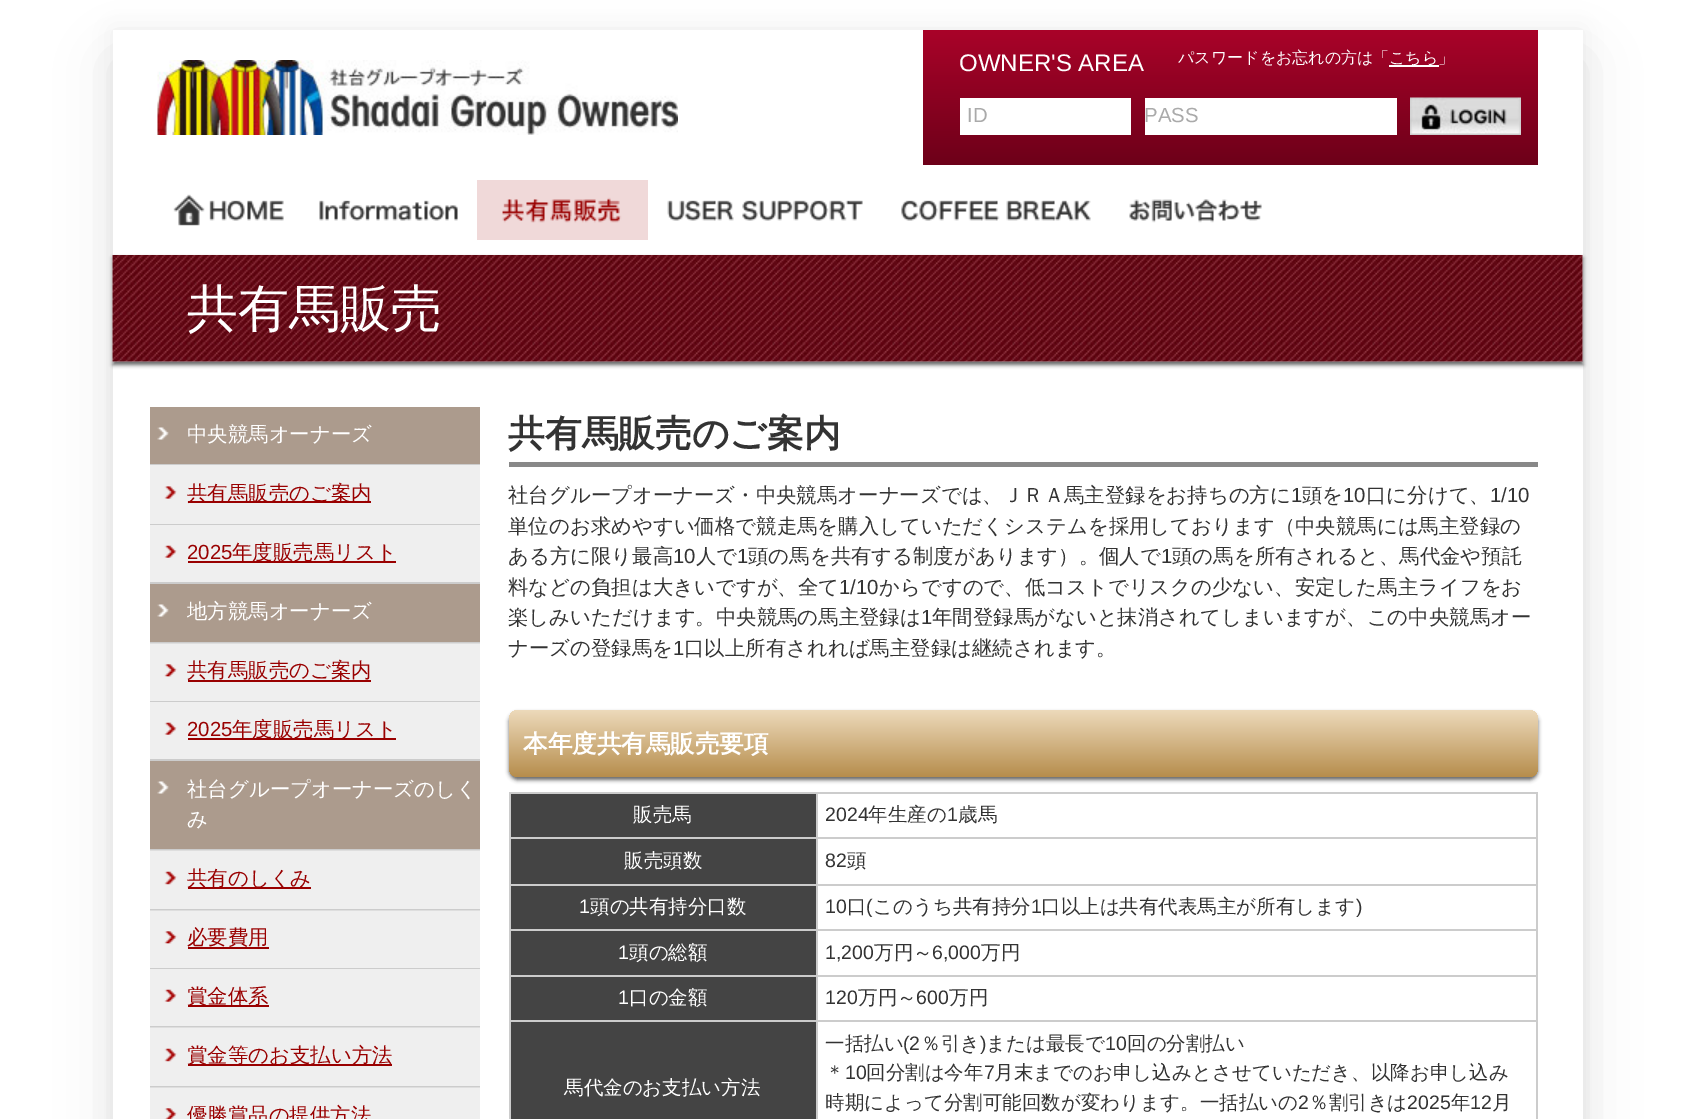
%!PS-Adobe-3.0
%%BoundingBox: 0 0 1693 1119
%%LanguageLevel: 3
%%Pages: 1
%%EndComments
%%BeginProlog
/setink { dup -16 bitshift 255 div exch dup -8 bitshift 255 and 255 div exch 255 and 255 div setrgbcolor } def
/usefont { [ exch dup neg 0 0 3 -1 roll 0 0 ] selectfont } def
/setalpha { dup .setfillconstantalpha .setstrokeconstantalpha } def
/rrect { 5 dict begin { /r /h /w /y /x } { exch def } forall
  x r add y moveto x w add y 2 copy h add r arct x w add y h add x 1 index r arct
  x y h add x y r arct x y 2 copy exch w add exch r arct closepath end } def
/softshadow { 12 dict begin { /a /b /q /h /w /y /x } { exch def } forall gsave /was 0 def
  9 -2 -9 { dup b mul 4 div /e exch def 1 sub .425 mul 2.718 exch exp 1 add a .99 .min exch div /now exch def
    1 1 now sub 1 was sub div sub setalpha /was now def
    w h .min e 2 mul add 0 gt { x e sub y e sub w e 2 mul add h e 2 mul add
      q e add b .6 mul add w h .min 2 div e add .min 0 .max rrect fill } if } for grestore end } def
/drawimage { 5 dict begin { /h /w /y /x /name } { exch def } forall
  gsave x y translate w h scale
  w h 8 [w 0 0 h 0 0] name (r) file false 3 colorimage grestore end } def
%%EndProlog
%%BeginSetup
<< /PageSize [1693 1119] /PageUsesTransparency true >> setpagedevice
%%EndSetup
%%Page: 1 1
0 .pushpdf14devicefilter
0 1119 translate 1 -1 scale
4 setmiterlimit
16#FFFFFF setink
0 0 1693 1119 rectfill
16#000000 setink
113 60 1470 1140 0 27 0.1 softshadow
113 30 1470 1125 0 12 0.05 softshadow
16#FFFFFF setink
113 30 1470 1089 rectfill
(img1.raw) 157 60 521 75 drawimage
gsave 923 30 moveto 1538 30 lineto 1538 165 lineto 923 165 lineto closepath clip newpath
<< /ShadingType 2 /ColorSpace /DeviceRGB /Coords [1230 30 1230 165] /Extend [true true] /Function << /FunctionType 2 /Domain [0 1] /C0 [0.663 0.012 0.161] /C1 [0.427 0 0.098] /N 1 >> >> shfill grestore
/LiberationSans-Regular 24 usefont
959 71 moveto (OWNER'S AREA) show
/WenQuanYiZenHei-Medium 16 usefont
1178 63 moveto (パスワードをお忘れの方は「) show
1389 65 50 2 rectfill
1389 63 moveto (こちら」) show
960 98 171 37 rectfill
/LiberationSans-Regular 20.4 usefont
16#AAAAAA setink
967 122 moveto (ID) show
16#FFFFFF setink
1145 98 252 37 rectfill
16#AAAAAA setink
1144 122 moveto (PASS) show
(img2.raw) 1410 97 111 38 drawimage
(img3.raw) 173 194 111 32 drawimage
(img4.raw) 319 200 139 21 drawimage
(img5.raw) 477 180 171 60 drawimage
(img6.raw) 667 200 196 21 drawimage
(img7.raw) 901 200 190 21 drawimage
(img8.raw) 1129 199 133 24 drawimage
gsave 113 255 moveto 1583 255 lineto 1583 362 lineto 113 362 lineto closepath clip newpath
<< /ShadingType 2 /ColorSpace /DeviceRGB /Coords [848 255 848 362] /Extend [true true] /Function << /FunctionType 3 /Domain [0 1] /Functions [<< /FunctionType 2 /Domain [0 1] /C0 [0.933 0.945 0.953] /C1 [0.933 0.945 0.953] /N 1 >> << /FunctionType 2 /Domain [0 1] /C0 [0.933 0.945 0.953] /C1 [0.878 0.89 0.902] /N 1 >>] /Bounds [0.54] /Encode [0 1 0 1] >> >> shfill grestore
16#666666 setink
113 258 1470 107 0 2 1 softshadow
(img9.raw) 112 255 1471 107 drawimage
/WenQuanYiZenHei-Medium 51 usefont
16#FFFFFF setink
187 326 moveto (共有馬販売) show
16#AC9B8D setink
150 407 330 57 rectfill
(img10.raw) 157 427 12 13 drawimage
16#CCCCCC setink
150 464 330 1 rectfill
/WenQuanYiZenHei-Medium 20.4 usefont
16#FFFFFF setink
187 441 moveto (中央競馬オーナーズ) show
16#EFEFEF setink
150 465 330 59 rectfill
(img11.raw) 164 486 13 13 drawimage
16#CCCCCC setink
150 524 330 1 rectfill
16#990000 setink
188 501 183 2 rectfill
187 500 moveto (共有馬販売のご案内) show
16#EFEFEF setink
150 525 330 57 rectfill
(img12.raw) 164 545 13 13 drawimage
16#CCCCCC setink
150 582 330 2 rectfill
/LiberationSans-Regular 20.4 usefont
16#990000 setink
187 559 moveto (2025) show
188 561 208 2 rectfill
/WenQuanYiZenHei-Medium 20.4 usefont
232 559 moveto (年度販売馬リスト) show
16#AC9B8D setink
150 584 330 58 rectfill
(img10.raw) 157 604 12 13 drawimage
16#CCCCCC setink
150 642 330 2 rectfill
16#FFFFFF setink
187 618 moveto (地方競馬オーナーズ) show
16#EFEFEF setink
150 677 330 24 rectfill
(img13.raw) 150 643 330 34 drawimage
16#CCCCCC setink
150 701 330 1 rectfill
16#990000 setink
188 680 183 2 rectfill
187 677 moveto (共有馬販売のご案内) show
16#EFEFEF setink
150 702 330 57 rectfill
(img12.raw) 164 722 13 13 drawimage
16#CCCCCC setink
150 759 330 2 rectfill
/LiberationSans-Regular 20.4 usefont
16#990000 setink
187 736 moveto (2025) show
188 738 208 2 rectfill
/WenQuanYiZenHei-Medium 20.4 usefont
232 736 moveto (年度販売馬リスト) show
16#AC9B8D setink
150 761 330 88 rectfill
(img10.raw) 157 781 12 13 drawimage
16#CCCCCC setink
150 849 330 2 rectfill
16#FFFFFF setink
187 796 moveto (社台グループオーナーズのしく) show
187 826 moveto (み) show
16#EFEFEF setink
150 885 330 24 rectfill
(img14.raw) 150 850 330 35 drawimage
16#CCCCCC setink
150 909 330 2 rectfill
16#990000 setink
188 887 123 2 rectfill
187 885 moveto (共有のしくみ) show
16#EFEFEF setink
150 944 330 24 rectfill
(img13.raw) 150 910 330 34 drawimage
16#CCCCCC setink
150 968 330 1 rectfill
16#990000 setink
188 947 81 2 rectfill
187 944 moveto (必要費用) show
16#EFEFEF setink
150 969 330 57 rectfill
(img12.raw) 164 989 13 13 drawimage
16#CCCCCC setink
150 1026 330 2 rectfill
16#990000 setink
188 1005 81 2 rectfill
187 1003 moveto (賞金体系) show
16#EFEFEF setink
150 1062 330 24 rectfill
(img14.raw) 150 1027 330 35 drawimage
16#CCCCCC setink
150 1086 330 2 rectfill
16#990000 setink
188 1064 204 2 rectfill
187 1062 moveto (賞金等のお支払い方法) show
(img15.raw) 150 1087 330 32 drawimage
187 1122 moveto (優勝賞品の提供方法) show
16#888888 setink
509 462 1029 5 rectfill
/WenQuanYiZenHei-Bold 36.75 usefont
16#333333 setink
508 446 moveto (共有馬販売のご案内) show
/WenQuanYiZenHei-Medium 20.4 usefont
508 502 moveto (社台グループオーナーズ・中央競馬オーナーズでは、ＪＲＡ馬主登録をお持ちの方に) show
/LiberationSans-Regular 20.4 usefont
1291 502 moveto (1) show
/WenQuanYiZenHei-Medium 20.4 usefont
1302 502 moveto (頭を) show
/LiberationSans-Regular 20.4 usefont
1343 502 moveto (10) show
/WenQuanYiZenHei-Medium 20.4 usefont
1366 502 moveto (口に分けて、) show
/LiberationSans-Regular 20.4 usefont
1490 502 moveto (1/10) show
/WenQuanYiZenHei-Medium 20.4 usefont
508 533 moveto (単位のお求めやすい価格で競走馬を購入していただくシステムを採用しております（中央競馬には馬主登録の) show
508 563 moveto (ある方に限り最高) show
/LiberationSans-Regular 20.4 usefont
673 563 moveto (10) show
/WenQuanYiZenHei-Medium 20.4 usefont
696 563 moveto (人で) show
/LiberationSans-Regular 20.4 usefont
737 563 moveto (1) show
/WenQuanYiZenHei-Medium 20.4 usefont
748 563 moveto (頭の馬を共有する制度があります）。個人で) show
/LiberationSans-Regular 20.4 usefont
1161 563 moveto (1) show
/WenQuanYiZenHei-Medium 20.4 usefont
1172 563 moveto (頭の馬を所有されると、馬代金や預託) show
508 594 moveto (料などの負担は大きいですが、全て) show
/LiberationSans-Regular 20.4 usefont
839 594 moveto (1/10) show
/WenQuanYiZenHei-Medium 20.4 usefont
879 594 moveto (からですので、低コストでリスクの少ない、安定した馬主ライフをお) show
508 624 moveto (楽しみいただけます。中央競馬の馬主登録は) show
/LiberationSans-Regular 20.4 usefont
921 624 moveto (1) show
/WenQuanYiZenHei-Medium 20.4 usefont
932 624 moveto (年間登録馬がないと抹消されてしまいますが、この中央競馬オー) show
508 655 moveto (ナーズの登録馬を) show
/LiberationSans-Regular 20.4 usefont
673 655 moveto (1) show
/WenQuanYiZenHei-Medium 20.4 usefont
684 655 moveto (口以上所有されれば馬主登録は継続されます。) show
16#666666 setink
509 713 1029 67 9 2 1 softshadow
gsave 509 710 1029 67 9 rrect clip newpath
<< /ShadingType 2 /ColorSpace /DeviceRGB /Coords [1023 709 1023 777] /Extend [true true] /Function << /FunctionType 2 /Domain [0 1] /C0 [0.933 0.859 0.741] /C1 [0.714 0.553 0.298] /N 1 >> >> shfill grestore
/WenQuanYiZenHei-Bold 24.5 usefont
16#FFFFFF setink
523 752 moveto (本年度共有馬販売要項) show
[
    [509 792 1029 2 16#CCCCCC]
    [509 792 2 327 16#CCCCCC]
    [511 794 305 43 16#444444]
    [816 1020 2 99 16#CCCCCC]
    [1536 792 2 327 16#CCCCCC]
    [816 1020 722 2 16#CCCCCC]
    [816 975 2 47 16#CCCCCC]
    [816 975 722 2 16#CCCCCC]
    [816 929 2 48 16#CCCCCC]
    [816 929 722 2 16#CCCCCC]
    [816 884 2 46 16#CCCCCC]
    [816 884 722 2 16#CCCCCC]
    [816 837 2 48 16#CCCCCC]
    [816 837 722 2 16#CCCCCC]
    [816 792 2 47 16#CCCCCC]
    [509 837 309 2 16#CCCCCC]
] { aload pop setink rectfill } forall
/WenQuanYiZenHei-Medium 19.5 usefont
16#FFFFFF setink
633 821 moveto (販売馬) show
/LiberationSans-Regular 19.5 usefont
16#333333 setink
825 821 moveto (2024) show
/WenQuanYiZenHei-Medium 19.5 usefont
868 821 moveto (年生産の) show
/LiberationSans-Regular 19.5 usefont
947 821 moveto (1) show
/WenQuanYiZenHei-Medium 19.5 usefont
958 821 moveto (歳馬) show
16#444444 setink
511 839 305 45 rectfill
16#CCCCCC setink
509 884 309 2 rectfill
16#FFFFFF setink
624 867 moveto (販売頭数) show
/LiberationSans-Regular 19.5 usefont
16#333333 setink
825 867 moveto (82) show
/WenQuanYiZenHei-Medium 19.5 usefont
847 867 moveto (頭) show
16#444444 setink
511 886 305 43 rectfill
16#CCCCCC setink
509 929 309 2 rectfill
/LiberationSans-Regular 19.5 usefont
16#FFFFFF setink
579 913 moveto (1) show
/WenQuanYiZenHei-Medium 19.5 usefont
590 913 moveto (頭の共有持分口数) show
/LiberationSans-Regular 19.5 usefont
16#333333 setink
825 913 moveto (10) show
/WenQuanYiZenHei-Medium 19.5 usefont
847 913 moveto (口) show
/LiberationSans-Regular 19.5 usefont
866 913 moveto (\() show
/WenQuanYiZenHei-Medium 19.5 usefont
873 913 moveto (このうち共有持分) show
/LiberationSans-Regular 19.5 usefont
1031 913 moveto (1) show
/WenQuanYiZenHei-Medium 19.5 usefont
1041 913 moveto (口以上は共有代表馬主が所有します) show
/LiberationSans-Regular 19.5 usefont
1356 913 moveto (\)) show
16#444444 setink
511 931 305 44 rectfill
16#CCCCCC setink
509 975 309 2 rectfill
16#FFFFFF setink
618 959 moveto (1) show
/WenQuanYiZenHei-Medium 19.5 usefont
629 959 moveto (頭の総額) show
/LiberationSans-Regular 19.5 usefont
16#333333 setink
825 959 moveto (1,200) show
/WenQuanYiZenHei-Medium 19.5 usefont
874 959 moveto (万円～) show
/LiberationSans-Regular 19.5 usefont
932 959 moveto (6,000) show
/WenQuanYiZenHei-Medium 19.5 usefont
981 959 moveto (万円) show
16#444444 setink
511 977 305 43 rectfill
16#CCCCCC setink
509 1020 309 2 rectfill
/LiberationSans-Regular 19.5 usefont
16#FFFFFF setink
618 1004 moveto (1) show
/WenQuanYiZenHei-Medium 19.5 usefont
629 1004 moveto (口の金額) show
/LiberationSans-Regular 19.5 usefont
16#333333 setink
825 1004 moveto (120) show
/WenQuanYiZenHei-Medium 19.5 usefont
858 1004 moveto (万円～) show
/LiberationSans-Regular 19.5 usefont
916 1004 moveto (600) show
/WenQuanYiZenHei-Medium 19.5 usefont
949 1004 moveto (万円) show
16#444444 setink
511 1022 305 97 rectfill
16#FFFFFF setink
564 1094 moveto (馬代金のお支払い方法) show
16#333333 setink
825 1050 moveto (一括払い) show
/LiberationSans-Regular 19.5 usefont
903 1050 moveto (\(2) show
/WenQuanYiZenHei-Medium 19.5 usefont
921 1050 moveto (％引き) show
/LiberationSans-Regular 19.5 usefont
980 1050 moveto (\)) show
/WenQuanYiZenHei-Medium 19.5 usefont
986 1050 moveto (または最長で) show
/LiberationSans-Regular 19.5 usefont
1105 1050 moveto (10) show
/WenQuanYiZenHei-Medium 19.5 usefont
1127 1050 moveto (回の分割払い) show
825 1079 moveto (＊) show
/LiberationSans-Regular 19.5 usefont
845 1079 moveto (10) show
/WenQuanYiZenHei-Medium 19.5 usefont
866 1079 moveto (回分割は今年) show
/LiberationSans-Regular 19.5 usefont
984 1079 moveto (7) show
/WenQuanYiZenHei-Medium 19.5 usefont
994 1079 moveto (月末までのお申し込みとさせていただき、以降お申し込み) show
825 1109 moveto (時期によって分割可能回数が変わります。一括払いの) show
/LiberationSans-Regular 19.5 usefont
1298 1109 moveto (2) show
/WenQuanYiZenHei-Medium 19.5 usefont
1309 1109 moveto (％割引きは) show
/LiberationSans-Regular 19.5 usefont
1407 1109 moveto (2025) show
/WenQuanYiZenHei-Medium 19.5 usefont
1451 1109 moveto (年) show
/LiberationSans-Regular 19.5 usefont
1470 1109 moveto (12) show
/WenQuanYiZenHei-Medium 19.5 usefont
1492 1109 moveto (月) show
.poppdf14devicefilter showpage
%%EOF
